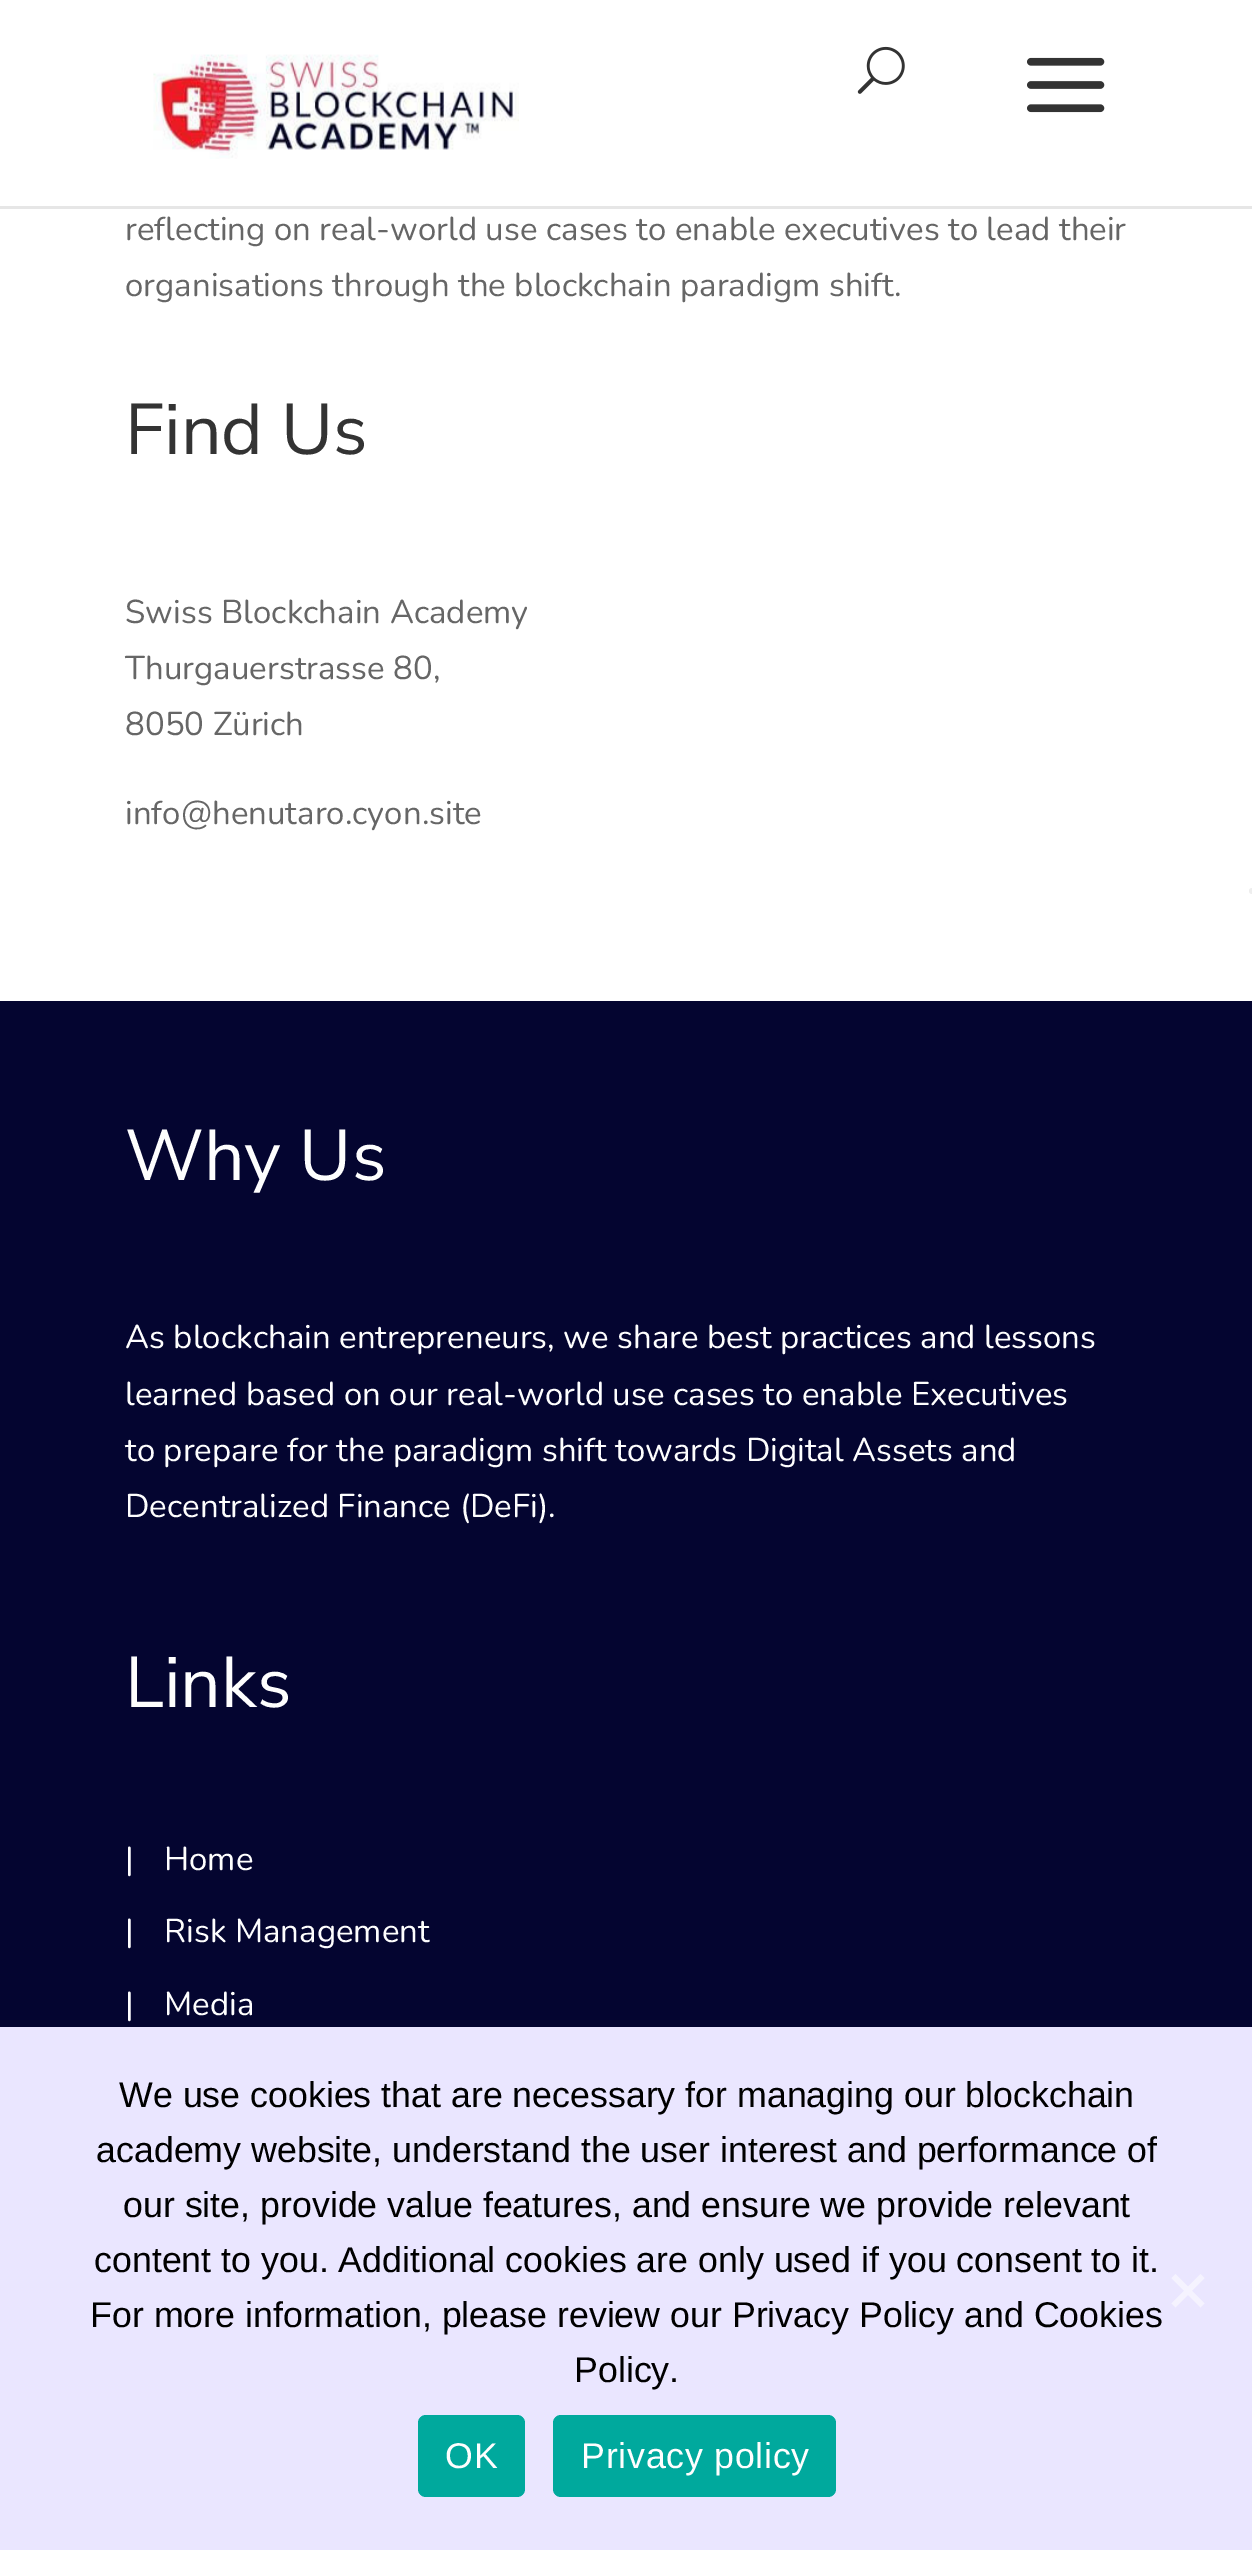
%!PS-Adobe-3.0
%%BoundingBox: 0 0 1252 2550
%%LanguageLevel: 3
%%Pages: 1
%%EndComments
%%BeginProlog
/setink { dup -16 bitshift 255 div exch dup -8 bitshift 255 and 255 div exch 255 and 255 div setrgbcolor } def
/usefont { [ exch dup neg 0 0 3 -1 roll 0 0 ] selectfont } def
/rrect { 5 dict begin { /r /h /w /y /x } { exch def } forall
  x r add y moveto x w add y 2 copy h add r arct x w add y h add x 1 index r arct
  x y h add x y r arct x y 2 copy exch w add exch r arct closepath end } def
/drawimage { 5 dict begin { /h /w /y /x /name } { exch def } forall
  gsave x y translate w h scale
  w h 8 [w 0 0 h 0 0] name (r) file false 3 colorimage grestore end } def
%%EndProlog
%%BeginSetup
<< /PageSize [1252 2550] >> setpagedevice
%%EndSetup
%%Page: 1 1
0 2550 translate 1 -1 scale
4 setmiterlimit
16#FFFFFF setink
0 0 1252 2550 rectfill
16#E6E6E6 setink
0 206 1252 3 rectfill
(img1.raw) 153 54 366 105 drawimage
(img2.raw) 857 46 48 48 drawimage
(img3.raw) 1027 57 78 56 drawimage
/Nunito-ExtraLight 33 usefont
16#666666 setink
125 240 moveto (reflecting on real-world use cases to enable executives to lead their) show
125 296 moveto (organisations through the blockchain paradigm shift.) show
/NunitoSans-ExtraLight 71.5 usefont
16#333333 setink
125 454 moveto (Find Us) show
/Nunito-ExtraLight 33 usefont
16#666666 setink
[
    [(Swiss Blockchain Academy) 125 623]
    [(Thurgauerstrasse 80,) 125 679]
    [(8050 Zürich) 125 735]
    [(info@henutaro.cyon.site) 125 824]
] { aload pop moveto show } forall
16#040530 setink
0 1001 1252 1026 rectfill
/NunitoSans-ExtraLight 71.5 usefont
16#FEFEFE setink
125 1180 moveto (Why Us) show
/Nunito-ExtraLight 33 usefont
[
    [(As blockchain entrepreneurs, we share best practices and lessons) 125 1348]
    [(learned based on our real-world use cases to enable Executives) 125 1405]
    [(to prepare for the paradigm shift towards Digital Assets and) 125 1461]
    [(Decentralized Finance \(DeFi\).) 125 1517]
] { aload pop moveto show } forall
/NunitoSans-ExtraLight 71.5 usefont
125 1707 moveto (Links) show
/Nunito-ExtraLight 33 usefont
[
    [(|) 125 1870]
    [(Home) 164 1870]
    [(|) 125 1942]
    [(Risk Management) 164 1942]
    [(|) 125 2015]
    [(Media) 164 2015]
] { aload pop moveto show } forall
16#EEEEEE setink
1252 888 moveto 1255 888 lineto 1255 894 lineto 1252 894 lineto 1250.5 894 1249 892.5 1249 891 curveto 1249 889.5 1250.5 888 1252 888 curveto closepath fill
16#EAE6FF setink
0 2027 1252 523 rectfill
/LiberationSans-Regular 35.75 usefont
16#000000 setink
[
    [(We use cookies that are necessary for managing our blockchain) 119 2107]
    [(academy website, understand the user interest and performance of) 96 2162]
    [(our site, provide value features, and ensure we provide relevant) 123 2217]
    [(content to you. Additional cookies are only used if you consent to it.) 94 2272]
    [(For more information, please review our Privacy Policy and Cookies) 90 2327]
    [(Policy.) 574 2382]
] { aload pop moveto show } forall
16#F5F3FF setink
1200.5 2274 moveto 1204.5 2278 lineto 1175.5 2307.5 lineto 1171.5 2303.5 lineto closepath fill
1171.5 2278 moveto 1175.5 2274 lineto 1204.5 2303.5 lineto 1200.5 2307.5 lineto closepath fill
16#00A99D setink
418 2415 107 82 8 rrect fill
16#FEFEFE setink
445 2468 moveto 0.75 0 (OK) ashow
16#00A99D setink
553 2415 283 82 8 rrect fill
16#FEFEFE setink
581 2468 moveto 0.75 0 (Privacy policy) ashow
showpage
%%EOF
